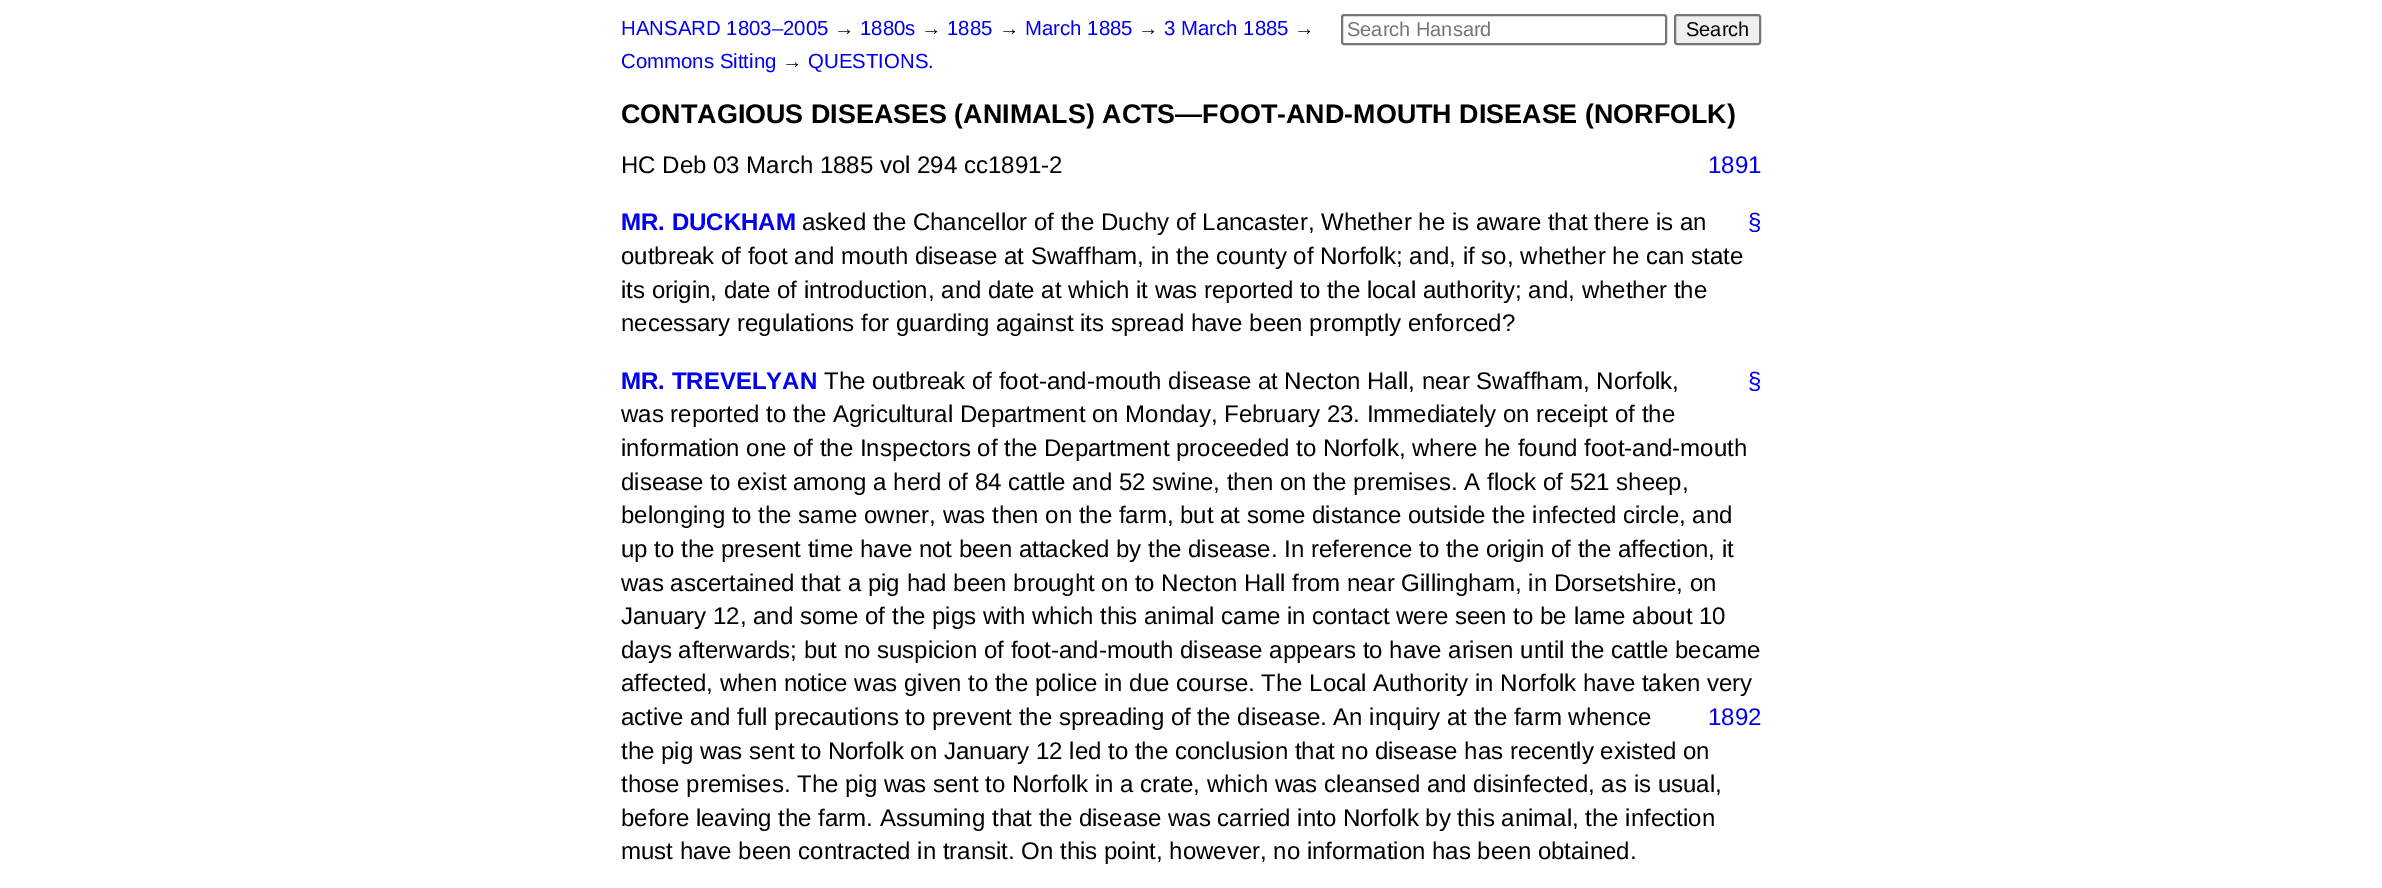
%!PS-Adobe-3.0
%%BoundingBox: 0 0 2382 888
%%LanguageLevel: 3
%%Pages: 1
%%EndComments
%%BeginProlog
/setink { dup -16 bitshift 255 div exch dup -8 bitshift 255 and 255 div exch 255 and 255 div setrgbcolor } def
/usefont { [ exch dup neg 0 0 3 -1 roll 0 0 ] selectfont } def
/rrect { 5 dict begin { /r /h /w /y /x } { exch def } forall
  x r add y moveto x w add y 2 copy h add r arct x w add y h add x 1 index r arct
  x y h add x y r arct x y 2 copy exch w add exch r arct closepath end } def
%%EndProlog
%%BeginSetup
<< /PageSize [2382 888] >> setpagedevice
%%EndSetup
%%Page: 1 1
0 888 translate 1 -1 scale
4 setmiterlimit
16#FFFFFF setink
0 0 2382 888 rectfill
/LiberationSans-Regular 20.4 usefont
16#0000EE setink
621 35 moveto (HANSARD 1803–2005) show
16#000000 setink
834 35 moveto (→) show
16#0000EE setink
860 35 moveto (1880s) show
16#000000 setink
921 35 moveto (→) show
16#0000EE setink
947 35 moveto (1885) show
16#000000 setink
999 35 moveto (→) show
16#0000EE setink
1025 35 moveto (March 1885) show
16#000000 setink
1138 35 moveto (→) show
16#0000EE setink
1164 35 moveto (3 March 1885) show
16#000000 setink
1294 35 moveto (→) show
16#0000EE setink
621 68 moveto (Commons Sitting) show
16#000000 setink
782 68 moveto (→) show
16#0000EE setink
808 68 moveto (QUESTIONS.) show
16#767676 setink
2 setlinewidth
1342 15 324 29 2 rrect stroke
/LiberationSans-Regular 20 usefont
16#757575 setink
1347 36 moveto (Search Hansard) show
16#EFEFEF setink
1675 15 85 29 2 rrect gsave fill grestore
16#767676 setink
stroke
16#000000 setink
1686 36 moveto (Search) show
/LiberationSans-Bold 26.9 usefont
621 123 moveto (CONTAGIOUS DISEASES \(ANIMALS\) ACTS—FOOT-AND-MOUTH DISEASE \(NORFOLK\)) show
/LiberationSans-Regular 24 usefont
621 173 moveto (HC Deb 03 March 1885 vol 294 cc1891-2) show
16#0000EE setink
1708 173 moveto (1891) show
/LiberationSans-Bold 24 usefont
621 230 moveto (MR. DUCKHAM) show
/LiberationSans-Regular 24 usefont
16#000000 setink
802 230 moveto (asked the Chancellor of the Duchy of Lancaster, Whether he is aware that there is an) show
16#0000EE setink
1748 230 moveto (§) show
16#000000 setink
[
    [(outbreak of foot and mouth disease at Swaffham, in the county of Norfolk; and, if so, whether he can state) 621 264]
    [(its origin, date of introduction, and date at which it was reported to the local authority; and, whether the) 621 298]
    [(necessary regulations for guarding against its spread have been promptly enforced?) 621 331]
    [(The outbreak of foot-and-mouth disease at Necton Hall, near Swaffham, Norfolk,) 824 389]
    [(was reported to the Agricultural Department on Monday, February 23. Immediately on receipt of the) 621 422]
    [(information one of the Inspectors of the Department proceeded to Norfolk, where he found foot-and-mouth) 621 456]
    [(disease to exist among a herd of 84 cattle and 52 swine, then on the premises. A flock of 521 sheep,) 621 490]
    [(belonging to the same owner, was then on the farm, but at some distance outside the infected circle, and) 621 523]
    [(up to the present time have not been attacked by the disease. In reference to the origin of the affection, it) 621 557]
    [(was ascertained that a pig had been brought on to Necton Hall from near Gillingham, in Dorsetshire, on) 621 591]
    [(January 12, and some of the pigs with which this animal came in contact were seen to be lame about 10) 621 624]
    [(days afterwards; but no suspicion of foot-and-mouth disease appears to have arisen until the cattle became) 621 658]
    [(affected, when notice was given to the police in due course. The Local Authority in Norfolk have taken very) 621 691]
    [(active and full precautions to prevent the spreading of the disease. An inquiry at the farm whence) 621 725]
] { aload pop moveto show } forall
16#0000EE setink
1708 725 moveto (1892) show
16#000000 setink
[
    [(the pig was sent to Norfolk on January 12 led to the conclusion that no disease has recently existed on) 621 759]
    [(those premises. The pig was sent to Norfolk in a crate, which was cleansed and disinfected, as is usual,) 621 792]
    [(before leaving the farm. Assuming that the disease was carried into Norfolk by this animal, the infection) 621 826]
    [(must have been contracted in transit. On this point, however, no information has been obtained.) 621 859]
] { aload pop moveto show } forall
/LiberationSans-Bold 24 usefont
16#0000EE setink
621 389 moveto (MR. TREVELYAN) show
/LiberationSans-Regular 24 usefont
1748 389 moveto (§) show
showpage
%%EOF
